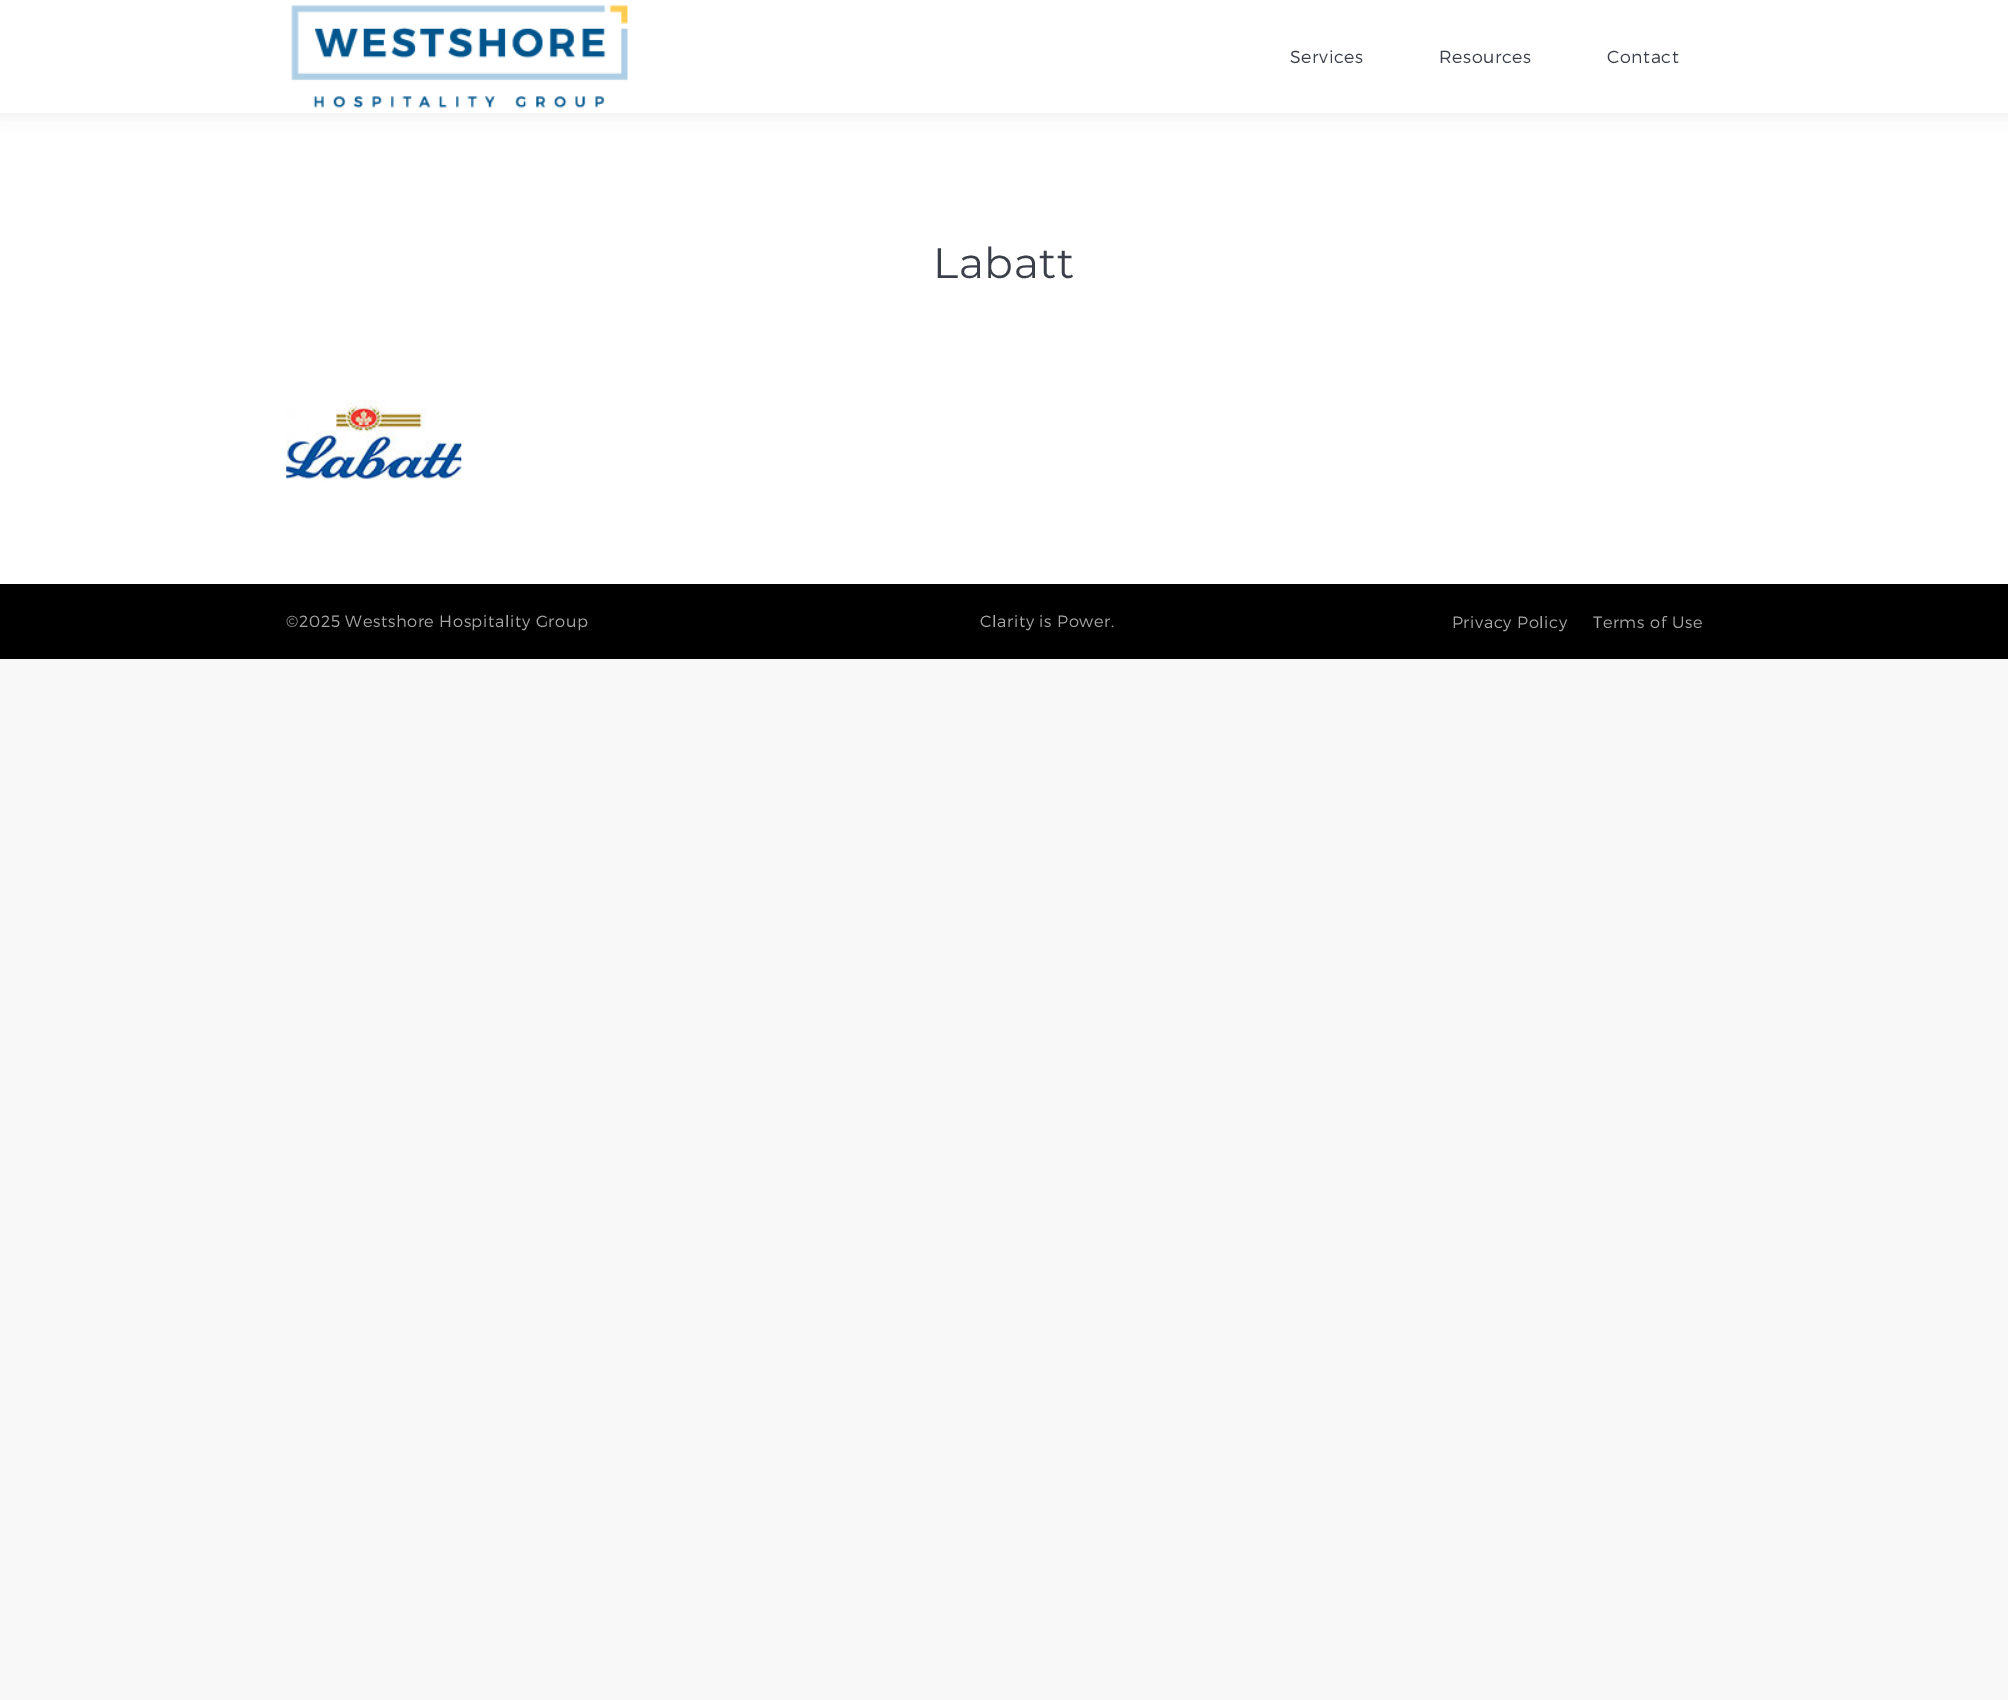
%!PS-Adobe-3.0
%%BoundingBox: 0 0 2008 1700
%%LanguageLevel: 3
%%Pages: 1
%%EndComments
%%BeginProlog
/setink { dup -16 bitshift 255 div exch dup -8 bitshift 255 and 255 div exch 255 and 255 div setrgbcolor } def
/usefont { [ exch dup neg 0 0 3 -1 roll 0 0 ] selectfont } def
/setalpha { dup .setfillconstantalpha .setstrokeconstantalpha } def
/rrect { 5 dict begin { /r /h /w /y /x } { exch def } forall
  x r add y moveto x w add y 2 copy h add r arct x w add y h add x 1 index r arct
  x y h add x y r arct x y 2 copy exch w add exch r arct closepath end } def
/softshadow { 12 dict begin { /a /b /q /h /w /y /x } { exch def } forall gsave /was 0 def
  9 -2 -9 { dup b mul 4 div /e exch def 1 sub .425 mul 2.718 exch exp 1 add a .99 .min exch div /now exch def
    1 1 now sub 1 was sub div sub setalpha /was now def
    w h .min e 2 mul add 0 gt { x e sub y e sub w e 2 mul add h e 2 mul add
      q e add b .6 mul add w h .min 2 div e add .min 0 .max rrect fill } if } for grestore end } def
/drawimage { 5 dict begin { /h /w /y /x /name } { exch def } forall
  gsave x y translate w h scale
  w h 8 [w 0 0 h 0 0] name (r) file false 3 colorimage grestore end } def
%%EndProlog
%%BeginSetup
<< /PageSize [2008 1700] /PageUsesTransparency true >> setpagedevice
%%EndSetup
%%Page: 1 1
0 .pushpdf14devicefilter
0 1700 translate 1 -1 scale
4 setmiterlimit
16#F8F8F9 setink
0 0 2008 1700 rectfill
16#FFFFFF setink
0 113 2008 471 rectfill
16#000000 setink
-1 -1 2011 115 0 9.5 0.07 softshadow
16#FFFFFF setink
0 0 2008 113 rectfill
(img1.raw) 291 4 337 104 drawimage
/Montserrat-Light 17.5 usefont
16#3B3F4A setink
1290 63 moveto 0.6 0 (Services) ashow
1439 63 moveto 0.6 0 (Resources) ashow
1607 63 moveto 0.6 0 (Contact) ashow
/Montserrat-Thin 42.5 usefont
933 278 moveto 0.6 0 (Labatt) ashow
(img2.raw) 286 400 176 81 drawimage
16#000000 setink
0 584 2008 75 rectfill
/Montserrat-Light 16.25 usefont
16#A4A6A8 setink
286 627 moveto 0.6 0 (©2025 Westshore Hospitality Group) ashow
980 627 moveto 0.6 0 (Clarity is Power.) ashow
1452 628 moveto 0.6 0 (Privacy Policy) ashow
1593 628 moveto 0.6 0 (Terms of Use) ashow
.poppdf14devicefilter showpage
%%EOF
